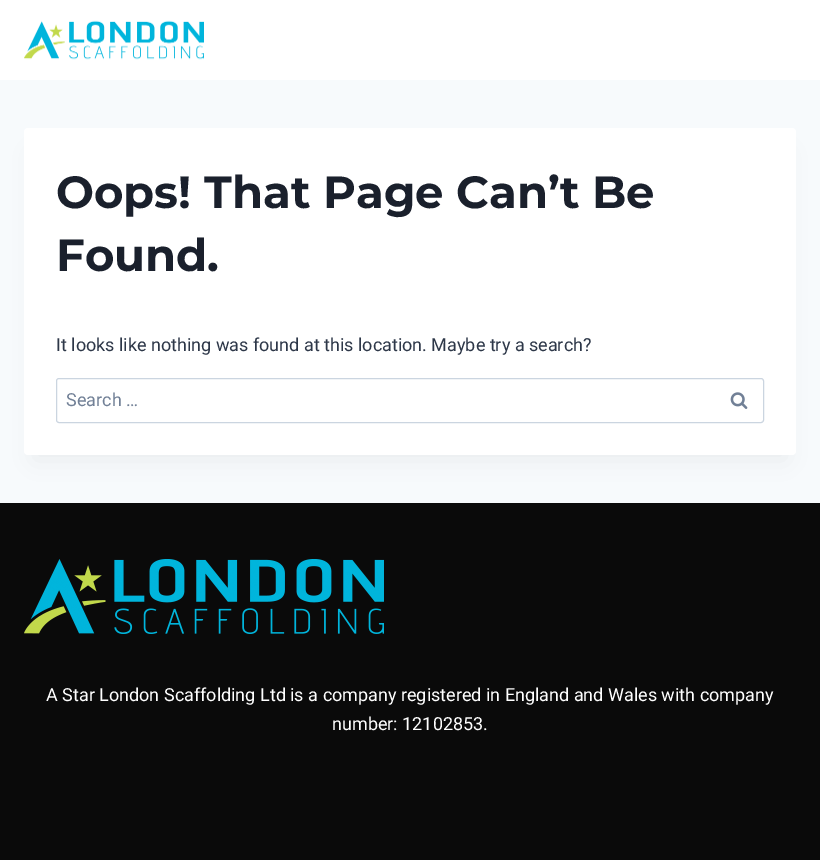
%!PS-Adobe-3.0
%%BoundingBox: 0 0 820 860
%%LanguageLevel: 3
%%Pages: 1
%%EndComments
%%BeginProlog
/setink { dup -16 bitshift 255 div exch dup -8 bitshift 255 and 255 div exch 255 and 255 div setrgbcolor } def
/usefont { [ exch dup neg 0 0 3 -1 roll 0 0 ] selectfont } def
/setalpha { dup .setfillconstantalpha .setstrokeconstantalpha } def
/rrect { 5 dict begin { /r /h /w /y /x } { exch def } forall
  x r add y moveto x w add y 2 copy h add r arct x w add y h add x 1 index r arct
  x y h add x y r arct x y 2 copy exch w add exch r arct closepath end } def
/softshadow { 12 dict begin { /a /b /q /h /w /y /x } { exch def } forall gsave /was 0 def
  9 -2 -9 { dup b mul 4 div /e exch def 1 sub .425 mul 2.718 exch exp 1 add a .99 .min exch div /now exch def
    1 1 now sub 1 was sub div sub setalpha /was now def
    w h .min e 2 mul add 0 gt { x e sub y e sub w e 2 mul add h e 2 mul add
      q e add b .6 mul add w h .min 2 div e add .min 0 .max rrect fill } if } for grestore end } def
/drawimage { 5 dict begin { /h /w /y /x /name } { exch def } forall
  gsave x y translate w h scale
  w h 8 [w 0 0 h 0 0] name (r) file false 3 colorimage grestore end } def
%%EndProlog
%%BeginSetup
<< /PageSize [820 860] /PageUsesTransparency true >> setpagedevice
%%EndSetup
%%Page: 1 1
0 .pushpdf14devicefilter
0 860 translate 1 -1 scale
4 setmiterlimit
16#F7FAFC setink
0 0 820 860 rectfill
16#FFFFFF setink
0 0 820 80 rectfill
(img1.raw) 24 20 180 40 drawimage
16#000000 setink
34 153 752 307 0 12.5 0.05 softshadow
16#FFFFFF setink
24 128 772 327 4 rrect fill
/Montserrat-Bold 45 usefont
16#1A202C setink
56 208 moveto (Oops! That Page Can’t Be) show
56 271 moveto (Found.) show
/Roboto-Regular 18 usefont
16#2D3748 setink
56 351 moveto (It looks like nothing was found at this location. Maybe try a search?) show
16#CBD5E0 setink
56.5 378.5 707 44 2.5 rrect stroke
16#718096 setink
66 406 moveto (Search …) show
(img2.raw) 730 392 18 17 drawimage
16#0A0A0A setink
0 503 820 357 rectfill
(img3.raw) 24 559 360 75 drawimage
16#FFFFFF setink
46 701 moveto (A Star London Scaffolding Ltd is a company registered in England and Wales with company) show
332 730 moveto (number: 12102853.) show
.poppdf14devicefilter showpage
%%EOF
